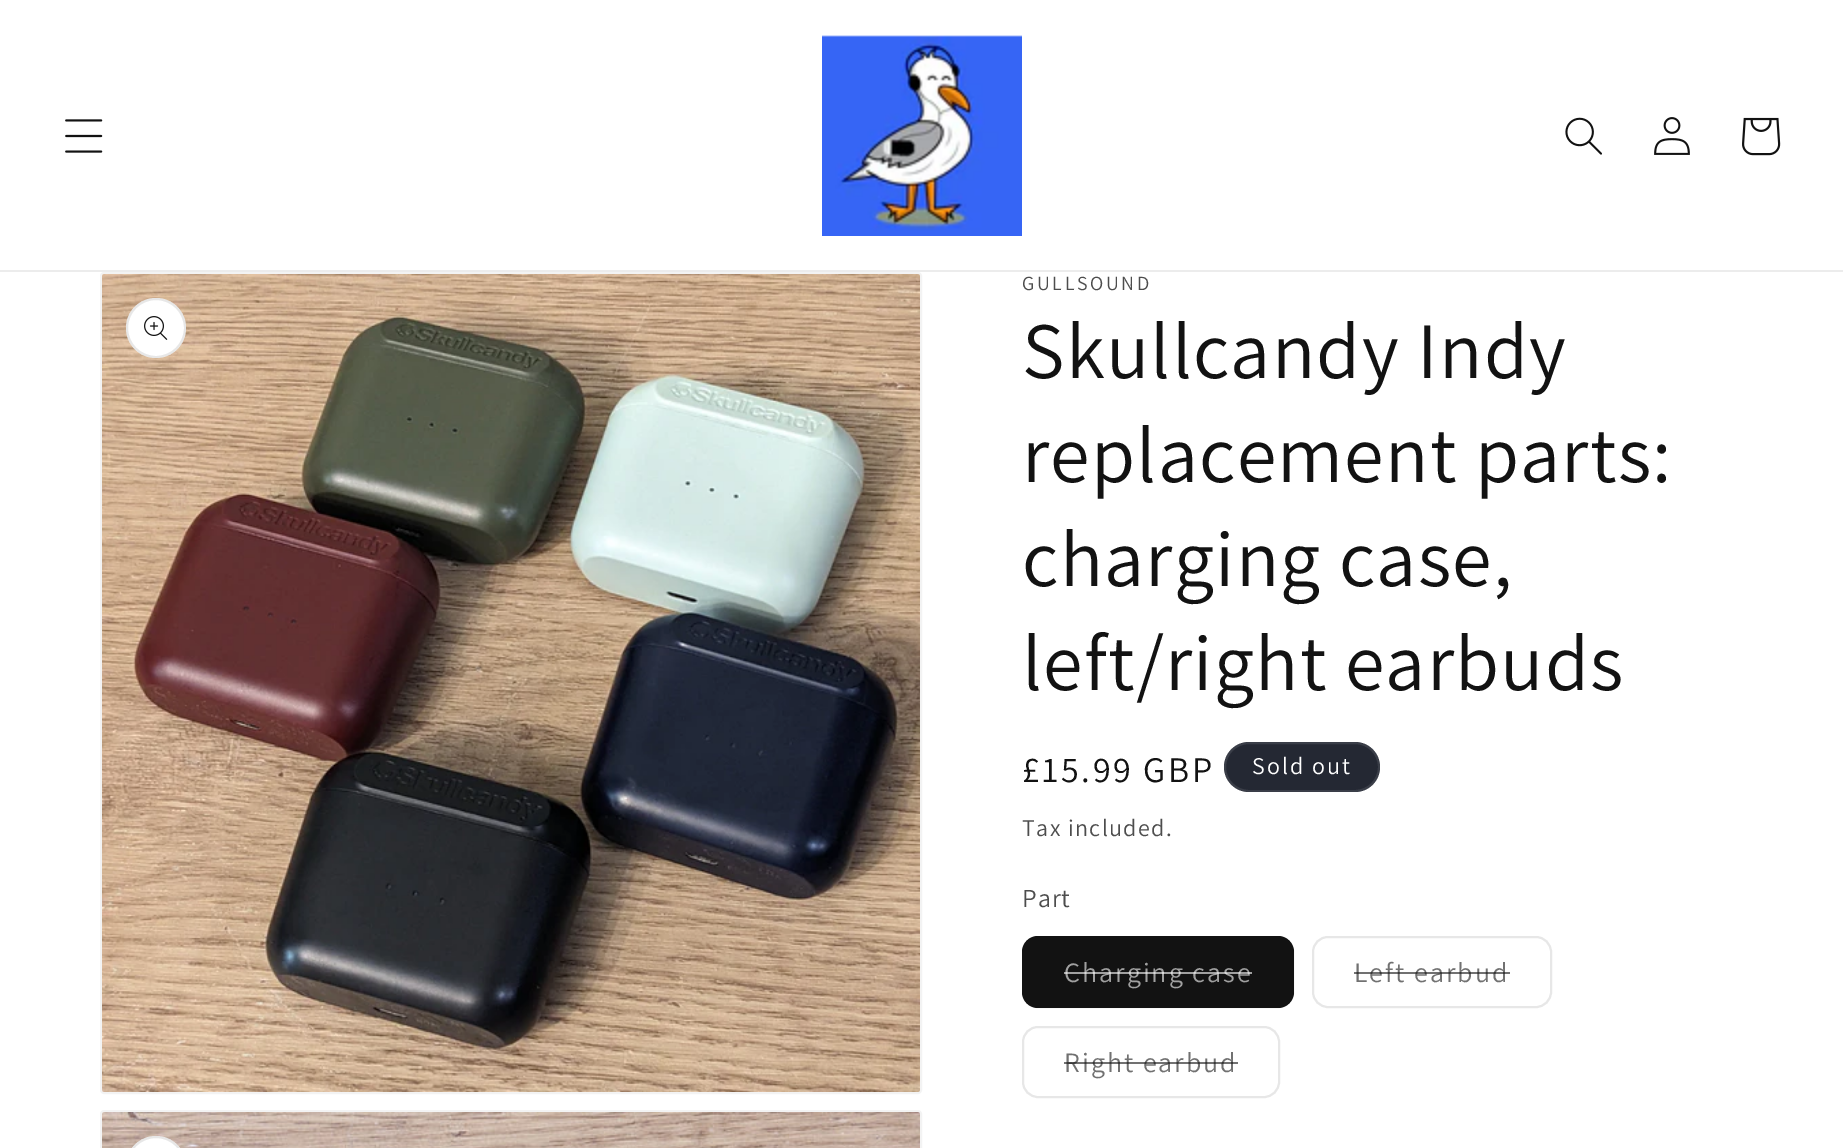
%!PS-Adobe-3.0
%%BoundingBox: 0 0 1843 1148
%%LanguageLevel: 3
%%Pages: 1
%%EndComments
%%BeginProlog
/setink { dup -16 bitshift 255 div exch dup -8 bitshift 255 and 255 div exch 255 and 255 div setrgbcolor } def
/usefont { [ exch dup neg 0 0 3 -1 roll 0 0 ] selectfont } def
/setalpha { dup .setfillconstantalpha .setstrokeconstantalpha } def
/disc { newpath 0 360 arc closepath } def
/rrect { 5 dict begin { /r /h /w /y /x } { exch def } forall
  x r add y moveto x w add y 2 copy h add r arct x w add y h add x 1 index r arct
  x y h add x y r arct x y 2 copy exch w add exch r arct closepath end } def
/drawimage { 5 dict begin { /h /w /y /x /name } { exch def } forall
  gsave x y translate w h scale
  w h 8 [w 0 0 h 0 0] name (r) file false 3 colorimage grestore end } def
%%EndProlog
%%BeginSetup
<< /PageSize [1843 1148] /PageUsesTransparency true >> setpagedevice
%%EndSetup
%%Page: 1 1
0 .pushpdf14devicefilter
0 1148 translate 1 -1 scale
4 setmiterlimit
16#FFFFFF setink
0 0 1843 1148 rectfill
16#ECECEC setink
0 270 1843 2 rectfill
(img1.raw) 65 119 38 34 drawimage
(img2.raw) 822 35 200 201 drawimage
(img3.raw) 1565 117 37 38 drawimage
(img4.raw) 1654 117 36 38 drawimage
(img5.raw) 1742 117 39 39 drawimage
16#F3F3F3 setink
2 setlinewidth
101 273 820 820 3 rrect stroke
(img6.raw) 102 274 818 818 drawimage
16#FFFFFF setink
156 328 30 disc fill
0.1 setalpha
16#121212 setink
156 328 29 disc stroke
1 setalpha
(img7.raw) 144 316 24 24 drawimage
16#F3F3F3 setink
101 1111 820 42 3 rrect stroke
(img8.raw) 102 1112 818 36 drawimage
16#FFFFFF setink
126 1136 60 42 30 rrect fill
0.1 setalpha
16#121212 setink
127 1137 58 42 29 rrect stroke
/Assistant-Regular 20 usefont
1 setalpha
16#4D4D4D setink
1022 290 moveto 2.6 0 (GULLSOUND) ashow
/Assistant-Regular 80 usefont
16#121212 setink
1022 378 moveto 1.25 0 (Skullcandy Indy) ashow
1022 482 moveto 1.25 0 (replacement parts:) ashow
1022 586 moveto 1.25 0 (charging case,) ashow
1022 690 moveto 1.25 0 (left/right earbuds) ashow
/Assistant-Regular 36 usefont
1022 782 moveto 2.6 0 (£15.99 GBP) ashow
16#242833 setink
1224 742 156 50 25 rrect fill
0.1 setalpha
16#FFFFFF setink
1225 743 154 48 24 rrect stroke
/Assistant-Regular 24 usefont
1 setalpha
1252 774 moveto 2 0 (Sold out) ashow
16#4D4D4D setink
1022 836 moveto 1.4 0 (Tax included.) ashow
/Assistant-Regular 26 usefont
1022 907 moveto 1 0 (Part) ashow
16#121212 setink
1022 936 272 72 16 rrect fill
0.1 setalpha
1023 937 270 70 15 rrect stroke
/Assistant-Regular 28 usefont
1 setalpha
16#A0A0A0 setink
1064 982 moveto 2 0 (Charging case) ashow
0.6 setalpha
16#FFFFFF setink
1064 972 188 2 rectfill
1 setalpha
16#E7E7E7 setink
1313 937 238 70 15 rrect stroke
16#717171 setink
1354 982 moveto 2 0 (Left earbud) ashow
0.6 setalpha
16#121212 setink
1354 972 156 2 rectfill
1 setalpha
16#E7E7E7 setink
1023 1027 256 70 15 rrect stroke
16#717171 setink
1064 1072 moveto 2 0 (Right earbud) ashow
0.6 setalpha
16#121212 setink
1064 1062 174 2 rectfill
.poppdf14devicefilter showpage
%%EOF
